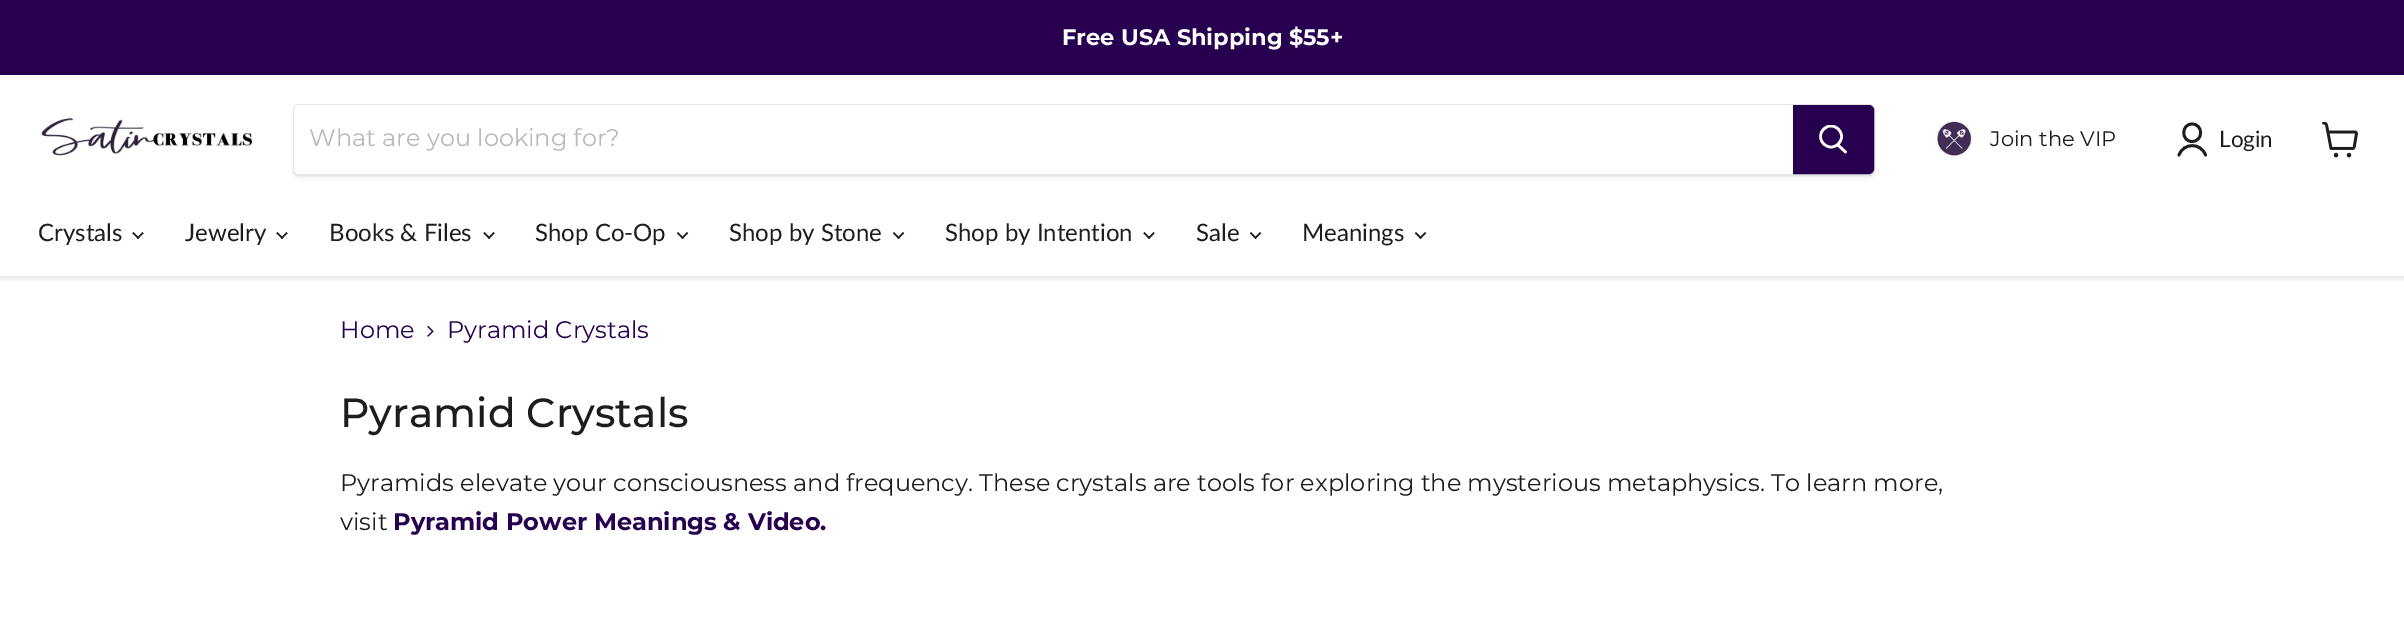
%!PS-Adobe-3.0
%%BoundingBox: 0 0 2404 620
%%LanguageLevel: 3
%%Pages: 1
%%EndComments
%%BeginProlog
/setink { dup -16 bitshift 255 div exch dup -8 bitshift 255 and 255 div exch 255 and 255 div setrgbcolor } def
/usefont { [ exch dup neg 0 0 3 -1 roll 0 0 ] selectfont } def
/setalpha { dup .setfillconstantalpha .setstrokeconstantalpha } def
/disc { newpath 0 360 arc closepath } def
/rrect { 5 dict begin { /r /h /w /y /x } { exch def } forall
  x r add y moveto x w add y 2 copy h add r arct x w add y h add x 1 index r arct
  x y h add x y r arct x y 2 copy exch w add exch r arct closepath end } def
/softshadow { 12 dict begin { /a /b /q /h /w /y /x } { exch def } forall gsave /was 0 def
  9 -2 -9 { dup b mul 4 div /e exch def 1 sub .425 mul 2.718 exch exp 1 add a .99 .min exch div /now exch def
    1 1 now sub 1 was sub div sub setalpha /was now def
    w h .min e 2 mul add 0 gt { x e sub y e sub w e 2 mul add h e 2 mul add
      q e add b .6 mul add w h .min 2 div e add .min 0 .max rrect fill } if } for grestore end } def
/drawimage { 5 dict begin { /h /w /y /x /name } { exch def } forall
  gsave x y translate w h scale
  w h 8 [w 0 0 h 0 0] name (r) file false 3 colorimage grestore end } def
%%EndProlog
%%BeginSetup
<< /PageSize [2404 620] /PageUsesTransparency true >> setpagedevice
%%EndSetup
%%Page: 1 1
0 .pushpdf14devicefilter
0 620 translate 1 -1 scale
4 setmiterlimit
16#FFFFFF setink
0 0 2404 620 rectfill
gsave
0 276 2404 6 rectclip
16#808080 setink
0 77 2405 201 0 3 0.25 softshadow
grestore
16#27004F setink
0 0 2404 75 rectfill
/Montserrat-Bold 22.5 usefont
16#FFFFFF setink
1062 45 moveto (Free USA Shipping $55+) show
(img1.raw) 41 118 212 38 drawimage
gsave
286 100 moveto 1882 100 lineto 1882 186 lineto 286 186 lineto closepath 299 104 moveto 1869 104 lineto 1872.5 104 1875 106.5 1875 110 curveto 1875 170 lineto 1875 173.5 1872.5 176 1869 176 curveto 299 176 lineto 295.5 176 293 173.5 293 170 curveto 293 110 lineto 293 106.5 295.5 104 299 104 curveto closepath eoclip newpath
16#808080 setink
293 107 1582 72 6 2 0.11 softshadow
grestore
0.2 setalpha
16#808080 setink
2 setlinewidth
294 105 1580 70 5 rrect stroke
1 setalpha
16#FFFFFF setink
299 105 moveto 1793 105 lineto 1793 174 lineto 299 174 lineto 296 174 294 172 294 169 curveto 294 110 lineto 294 107 296 105 299 105 curveto closepath fill
/Montserrat-Regular 24 usefont
16#B8B8B8 setink
309 146 moveto (What are you looking for?) show
16#27004F setink
1794 106 moveto 1869 106 lineto 1871 106 1873 108 1873 110 curveto 1873 169 lineto 1873 171 1871 173 1869 173 curveto 1794 173 lineto closepath gsave fill grestore
stroke
16#FFFFFF setink
2.6 setlinewidth
1 setlinecap
1845.5 152 moveto 1838 145 lineto stroke
gsave
1818 125 30 31 rectclip
0 setlinecap
1831 136.5 10.5 disc stroke
grestore
(img2.raw) 1936 121 37 36 drawimage
/Montserrat-Regular 21 usefont
16#1D1D1D setink
1990 146 moveto (Join the VIP) show
2.8 setlinewidth
1 setlinejoin
2192 141.5 moveto 2203.5 141.5 2203.5 124 2192 124 curveto 2181 124 2181 141.5 2192 141.5 curveto closepath 2205.5 155 moveto 2201 142.5 2183.5 142.5 2179 155 curveto stroke
/Lato-Regular 22.5 usefont
2219 147 moveto (Login) show
(img3.raw) 2322 122 36 36 drawimage
/Lato-Regular 24 usefont
38 241 moveto (Crystals) show
(img4.raw) 132 232 12 7 drawimage
185 241 moveto (Jewelry) show
(img4.raw) 276 232 12 7 drawimage
329 241 moveto (Books & Files) show
(img4.raw) 483 232 12 7 drawimage
535 241 moveto (Shop Co-Op) show
(img5.raw) 677 232 12 7 drawimage
729 241 moveto (Shop by Stone) show
(img5.raw) 893 232 12 7 drawimage
945 241 moveto (Shop by Intention) show
(img4.raw) 1143 232 12 7 drawimage
1196 241 moveto (Sale) show
(img5.raw) 1250 232 12 7 drawimage
1302 241 moveto (Meanings) show
(img5.raw) 1415 232 12 7 drawimage
/Montserrat-Regular 24 usefont
16#27004F setink
340 338 moveto (Home) show
(img6.raw) 427 325 7 12 drawimage
447 338 moveto (Pyramid Crystals) show
/Montserrat-Medium 40.75 usefont
16#1D1D1D setink
340 427 moveto (Pyramid Crystals) show
/Montserrat-Regular 24 usefont
340 491 moveto (Pyramids elevate your consciousness and frequency. These crystals are tools for exploring the mysterious metaphysics. To learn more,) show
340 530 moveto (visit) show
/Montserrat-Bold 24 usefont
16#27004F setink
393 530 moveto (Pyramid Power Meanings & Video.) show
.poppdf14devicefilter showpage
%%EOF
